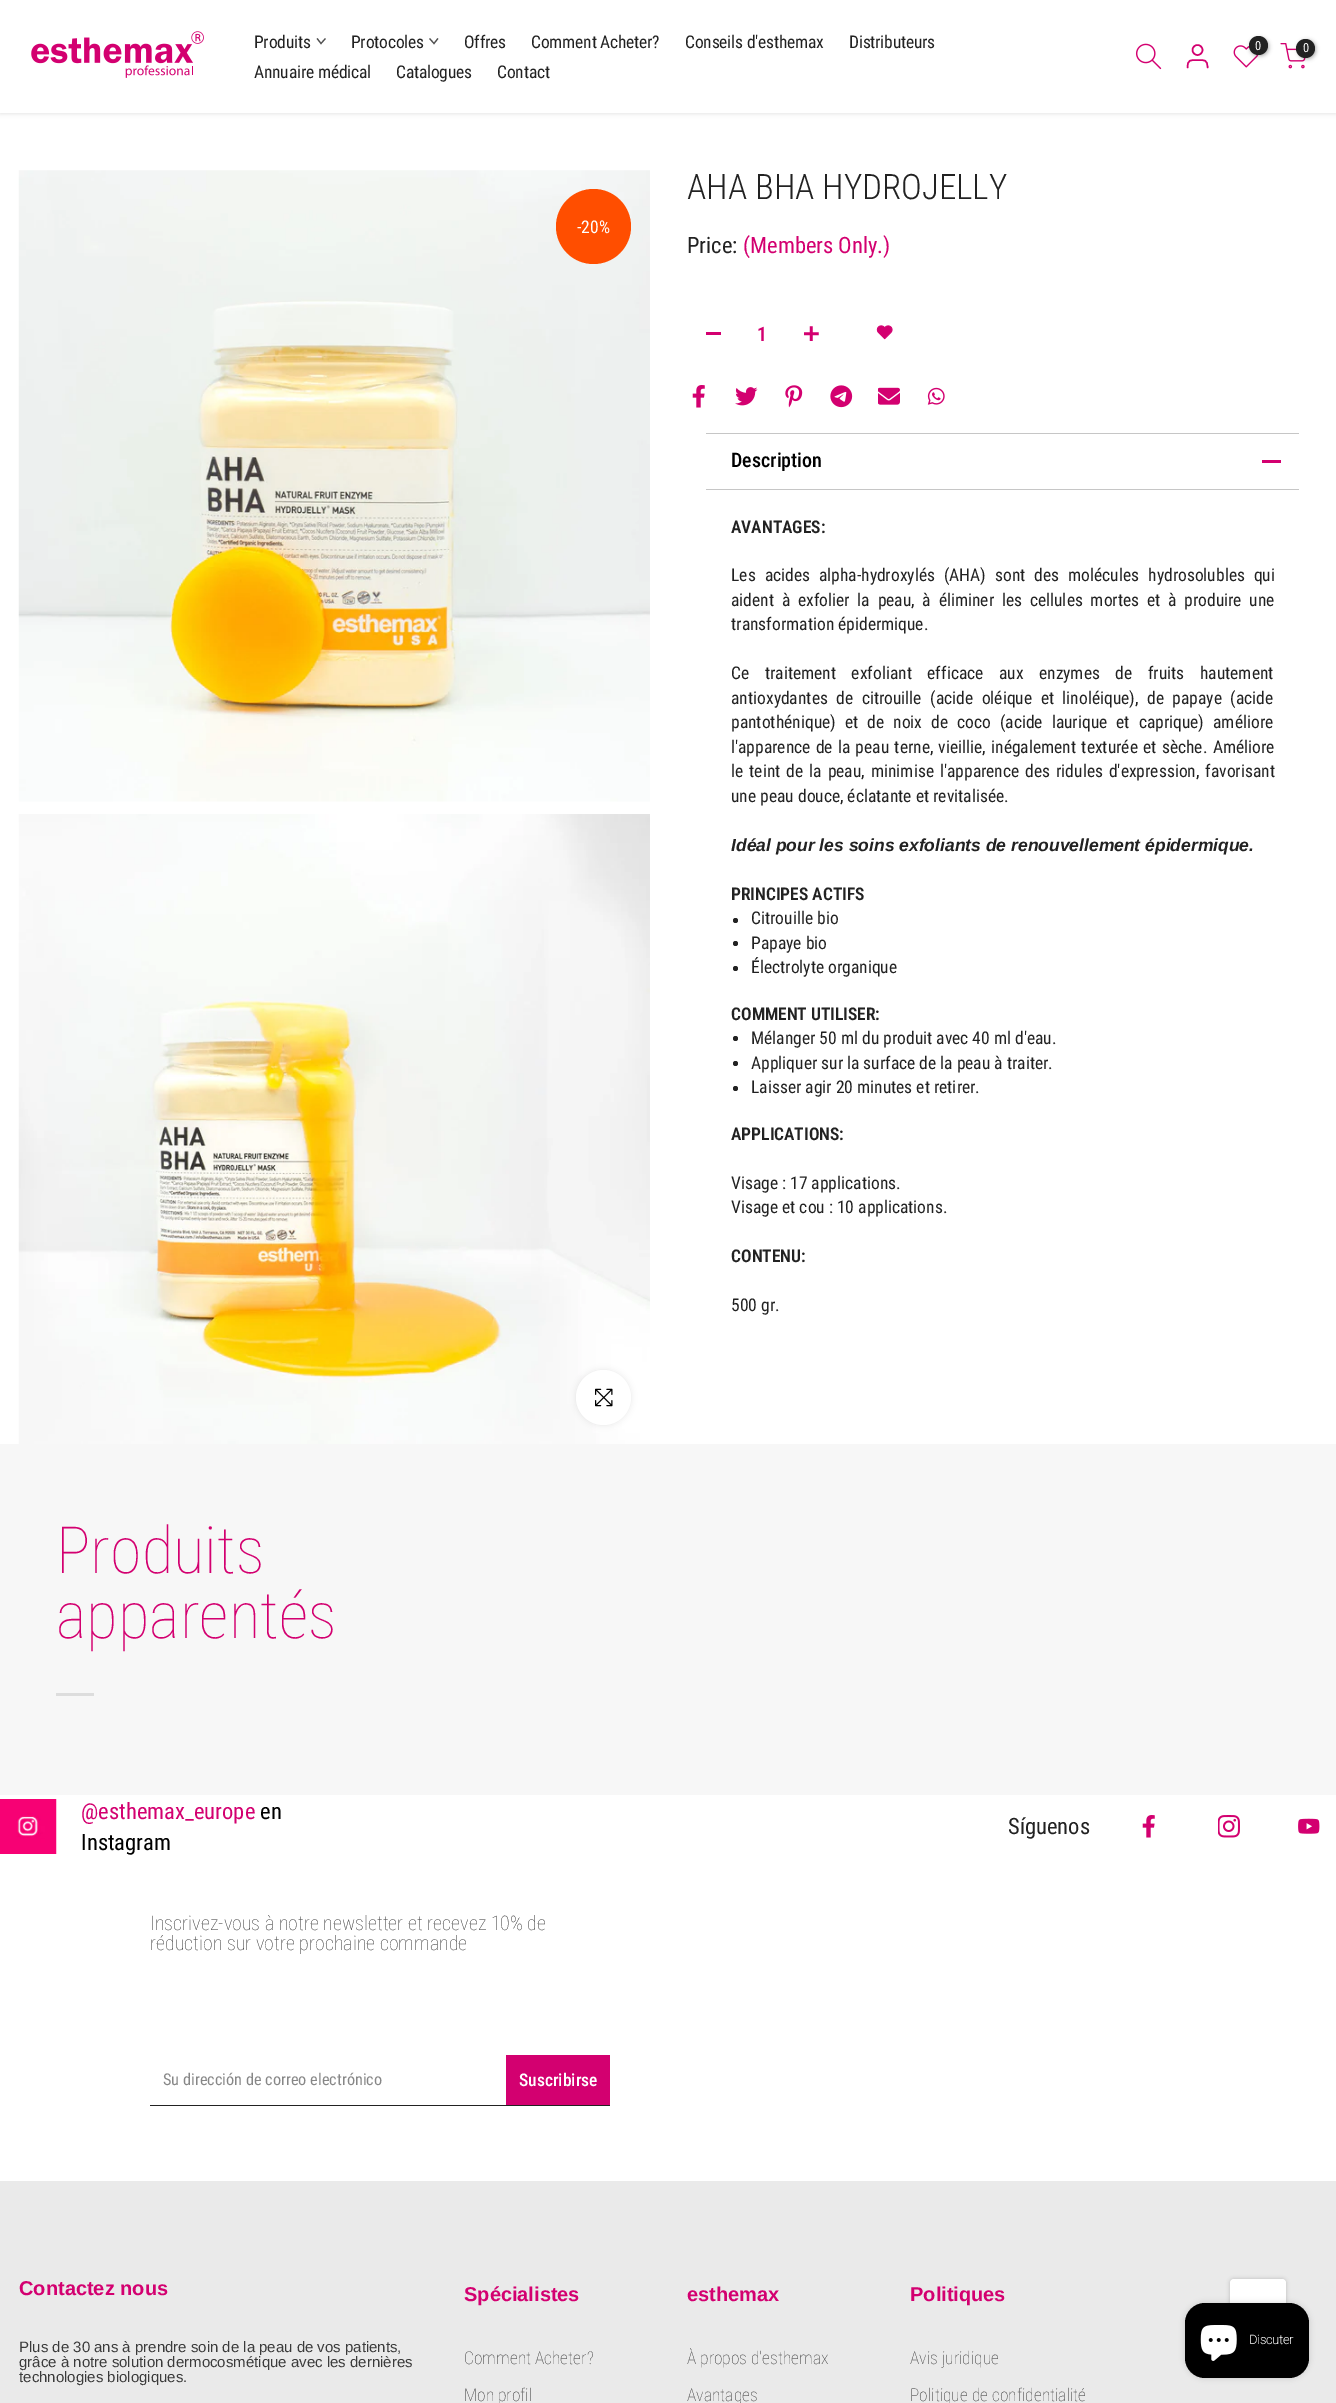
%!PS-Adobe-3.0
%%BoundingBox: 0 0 1336 2403
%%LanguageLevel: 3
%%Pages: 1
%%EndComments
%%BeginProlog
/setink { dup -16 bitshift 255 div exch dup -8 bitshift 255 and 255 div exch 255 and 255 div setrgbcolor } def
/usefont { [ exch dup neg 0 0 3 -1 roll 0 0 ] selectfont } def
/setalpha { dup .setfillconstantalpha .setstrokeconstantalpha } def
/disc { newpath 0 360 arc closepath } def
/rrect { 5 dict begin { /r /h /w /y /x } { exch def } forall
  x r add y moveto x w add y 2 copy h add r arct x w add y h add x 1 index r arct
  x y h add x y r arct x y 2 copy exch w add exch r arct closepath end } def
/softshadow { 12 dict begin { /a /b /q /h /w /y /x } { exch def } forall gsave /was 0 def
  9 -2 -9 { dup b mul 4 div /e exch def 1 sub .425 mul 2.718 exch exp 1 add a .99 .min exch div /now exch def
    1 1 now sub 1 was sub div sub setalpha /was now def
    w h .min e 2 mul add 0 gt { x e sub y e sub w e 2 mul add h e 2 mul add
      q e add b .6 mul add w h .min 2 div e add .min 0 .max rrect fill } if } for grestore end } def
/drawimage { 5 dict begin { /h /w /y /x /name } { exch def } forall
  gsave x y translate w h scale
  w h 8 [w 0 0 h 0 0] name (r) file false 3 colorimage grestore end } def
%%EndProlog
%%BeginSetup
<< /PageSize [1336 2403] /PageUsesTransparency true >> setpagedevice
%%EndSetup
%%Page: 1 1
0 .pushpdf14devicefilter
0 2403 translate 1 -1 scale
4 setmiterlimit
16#FFFFFF setink
0 0 1336 2403 rectfill
16#000000 setink
0 1 1336 113 0 2 0.1 softshadow
16#FFFFFF setink
0 0 1336 113 rectfill
(img1.raw) 31 31 173 47 drawimage
/RobotoCondensed-Regular 17.5 usefont
16#222222 setink
254 48 moveto -0.2 0 (Produits) ashow
16#4E4E4E setink
1.1 setlinewidth
2 setlinecap
325 39 moveto 321 43.5 lineto 317.5 39 lineto stroke
16#222222 setink
351 48 moveto -0.2 0 (Protocoles) ashow
16#4E4E4E setink
437.5 39 moveto 434 43.5 lineto 430 39 lineto stroke
16#222222 setink
464 48 moveto -0.2 0 (Offres) ashow
531 48 moveto -0.2 0 (Comment Acheter?) ashow
685 48 moveto -0.2 0 (Conseils d'esthemax) ashow
849 48 moveto -0.2 0 (Distributeurs) ashow
254 78 moveto -0.2 0 (Annuaire médical) ashow
396 78 moveto -0.2 0 (Catalogues) ashow
497 78 moveto -0.2 0 (Contact) ashow
(img2.raw) 1135 43 27 27 drawimage
16#D30070 setink
1.5 setlinewidth
0 setlinecap
1197.5 50 5 disc stroke
1 setlinecap
1 setlinejoin
1207.5 67.5 moveto 1207.5 59.5 1204.5 60 1197.5 60 curveto 1190.5 60 1187.5 59.5 1187.5 67.5 curveto stroke
(img3.raw) 1233 45 26 23 drawimage
16#000000 setink
1250 38 19 18 9 2 0.3 softshadow
16#222222 setink
1258.5 45.5 9.5 disc fill
/RobotoCondensed-Regular 12.5 usefont
16#FFFFFF setink
1255 50 moveto (0) show
(img4.raw) 1280 43 26 26 drawimage
16#000000 setink
1298 40 18 19 9 2 0.3 softshadow
16#222222 setink
1305.5 48.5 9.5 disc fill
16#FFFFFF setink
1303 52 moveto (0) show
(img5.raw) 18 170 632 632 drawimage
(img6.raw) 18 814 632 630 drawimage
16#FF4E00 setink
593.5 226.5 37.5 disc fill
/RobotoCondensed-Regular 17.5 usefont
16#FFFFFF setink
577 233 moveto (-20%) show
16#000000 setink
576 1370 55 55 27.5 3 0.09 softshadow
16#FFFFFF setink
603.5 1397.5 27.5 disc fill
(img7.raw) 595 1388 18 19 drawimage
/RobotoCondensed-Light 35 usefont
16#222222 setink
687 199 moveto (AHA BHA HYDROJELLY) show
/RobotoCondensed-Regular 22.5 usefont
687 253 moveto (Price:) show
16#D30070 setink
743 253 moveto (\(Members Only.\)) show
706 332 15 3 rectfill
/RobotoCondensed-SemiBold 20 usefont
757 341 moveto (1) show
(img8.raw) 804 326 15 15 drawimage
(img9.raw) 876 325 17 15 drawimage
(img10.raw) 692 385 13 23 drawimage
(img11.raw) 735 387 23 19 drawimage
(img12.raw) 785 385 18 23 drawimage
(img13.raw) 830 385 23 23 drawimage
(img14.raw) 878 387 22 18 drawimage
(img15.raw) 927 387 18 18 drawimage
16#C6C6C6 setink
706 433 593 1 rectfill
706 489 593 1 rectfill
/RobotoCondensed-Medium 20 usefont
16#000000 setink
731 467 moveto (Description) show
16#D30070 setink
1262 460 19 3 rectfill
/RobotoCondensed-SemiBold 17.5 usefont
16#222222 setink
731 533 moveto (AVANTAGES:) show
/RobotoCondensed-Regular 17.5 usefont
731 581 moveto 5 0 32 (Les acides alpha-hydroxylés \(AHA\) sont des molécules hydrosolubles qui) widthshow
731 606 moveto 3.75 0 32 (aident à exfolier la peau, à éliminer les cellules mortes et à produire une) widthshow
731 630 moveto (transformation épidermique.) show
731 679 moveto 11.5 0 32 (Ce traitement exfoliant efficace aux enzymes de fruits hautement) widthshow
731 704 moveto 4.5 0 32 (antioxydantes de citrouille \(acide oléique et linoléique\), de papaye \(acide) widthshow
731 728 moveto 5 0 32 (pantothénique\) et de noix de coco \(acide laurique et caprique\) améliore) widthshow
731 753 moveto 1.25 0 32 (l'apparence de la peau terne, vieillie, inégalement texturée et sèche. Améliore) widthshow
731 777 moveto 2 0 32 (le teint de la peau, minimise l'apparence des ridules d'expression, favorisant) widthshow
731 802 moveto (une peau douce, éclatante et revitalisée.) show
/LiberationSans-BoldItalic 17.5 usefont
731 851 moveto (Idéal pour les soins exfoliants de renouvellement épidermique.) show
/RobotoCondensed-SemiBold 17.5 usefont
731 900 moveto (PRINCIPES ACTIFS) show
735.5 920.5 2.5 disc fill
/RobotoCondensed-Regular 17.5 usefont
751 924 moveto (Citrouille bio) show
735.5 943.5 2.5 disc fill
751 949 moveto (Papaye bio) show
735.5 968.5 2.5 disc fill
751 973 moveto (Électrolyte organique) show
/RobotoCondensed-SemiBold 17.5 usefont
731 1020 moveto (COMMENT UTILISER:) show
735.5 1038.5 2.5 disc fill
/RobotoCondensed-Regular 17.5 usefont
751 1044 moveto (Mélanger 50 ml du produit avec 40 ml d'eau.) show
735.5 1063.5 2.5 disc fill
751 1069 moveto (Appliquer sur la surface de la peau à traiter.) show
735.5 1088.5 2.5 disc fill
751 1093 moveto (Laisser agir 20 minutes et retirer.) show
/RobotoCondensed-SemiBold 17.5 usefont
731 1140 moveto (APPLICATIONS:) show
/RobotoCondensed-Regular 17.5 usefont
731 1189 moveto (Visage : 17 applications.) show
731 1213 moveto (Visage et cou : 10 applications.) show
/RobotoCondensed-SemiBold 17.5 usefont
731 1262 moveto (CONTENU:) show
/RobotoCondensed-Regular 17.5 usefont
731 1311 moveto (500 gr.) show
16#F7F7F7 setink
0 1444 1336 351 rectfill
/RobotoCondensed-Thin 65 usefont
16#D30070 setink
56 1573 moveto (Produits) show
56 1638 moveto (apparentés) show
16#DDDDDD setink
56 1693 38 3 rectfill
(img16.raw) 0 1799 57 55 drawimage
/RobotoCondensed-Regular 22.5 usefont
16#D30070 setink
81 1819 moveto (@esthemax_europe) show
16#000000 setink
260 1819 moveto (en) show
81 1850 moveto (Instagram) show
16#222222 setink
1008 1834 moveto (Síguenos) show
(img10.raw) 1142 1815 13 23 drawimage
(img17.raw) 1218 1815 22 23 drawimage
(img18.raw) 1298 1818 22 16 drawimage
/RobotoCondensed-Thin 20 usefont
16#3B3B3B setink
150 1930 moveto (Inscrivez-vous à notre newsletter et recevez 10% de) show
150 1950 moveto (réduction sur votre prochaine commande) show
16#222222 setink
150 2105 460 1 rectfill
/RobotoCondensed-Regular 16.25 usefont
16#878787 setink
163 2085 moveto (Su dirección de correo electrónico) show
16#D30070 setink
506 2055 104 50 rectfill
/RobotoCondensed-Medium 17.5 usefont
16#FFFFFF setink
519 2086 moveto (Suscribirse) show
16#EAEAEA setink
0 2181 1336 222 rectfill
/LiberationSans-Bold 20 usefont
16#D30070 setink
19 2295 moveto (Contactez nous) show
/LiberationSans-Regular 15 usefont
16#3B3B3B setink
[
    [(Plus de 30 ans à prendre soin de la peau de vos patients,) 19 2352]
    [(grâce à notre solution dermocosmétique avec les dernières) 19 2367]
    [(technologies biologiques.) 19 2382]
] { aload pop moveto show } forall
/LiberationSans-Bold 20 usefont
16#D30070 setink
464 2301 moveto (Spécialistes) show
/RobotoCondensed-Thin 17.5 usefont
16#3B3B3B setink
464 2364 moveto (Comment Acheter?) show
464 2401 moveto (Mon profil) show
/LiberationSans-Bold 20 usefont
16#D30070 setink
687 2301 moveto (esthemax) show
/RobotoCondensed-Thin 17.5 usefont
16#3B3B3B setink
687 2364 moveto (À propos d'esthemax) show
687 2401 moveto (Avantages) show
/LiberationSans-Bold 20 usefont
16#D30070 setink
910 2301 moveto (Politiques) show
/RobotoCondensed-Thin 17.5 usefont
16#3B3B3B setink
910 2364 moveto (Avis juridique) show
910 2401 moveto (Politique de confidentialité) show
16#000000 setink
1230 2279 56 56 4 2 0.2 softshadow
16#FFFFFF setink
1230 2279 56 56 4 rrect fill
16#000000 setink
1185 2303 124 75 20 3 0.15 softshadow
1185 2303 124 75 20 rrect fill
(img19.raw) 1200 2325 37 36 drawimage
/Roboto-Bold 12.5 usefont
16#FFFFFF setink
1249 2344 moveto (Discuter) show
.poppdf14devicefilter showpage
%%EOF
